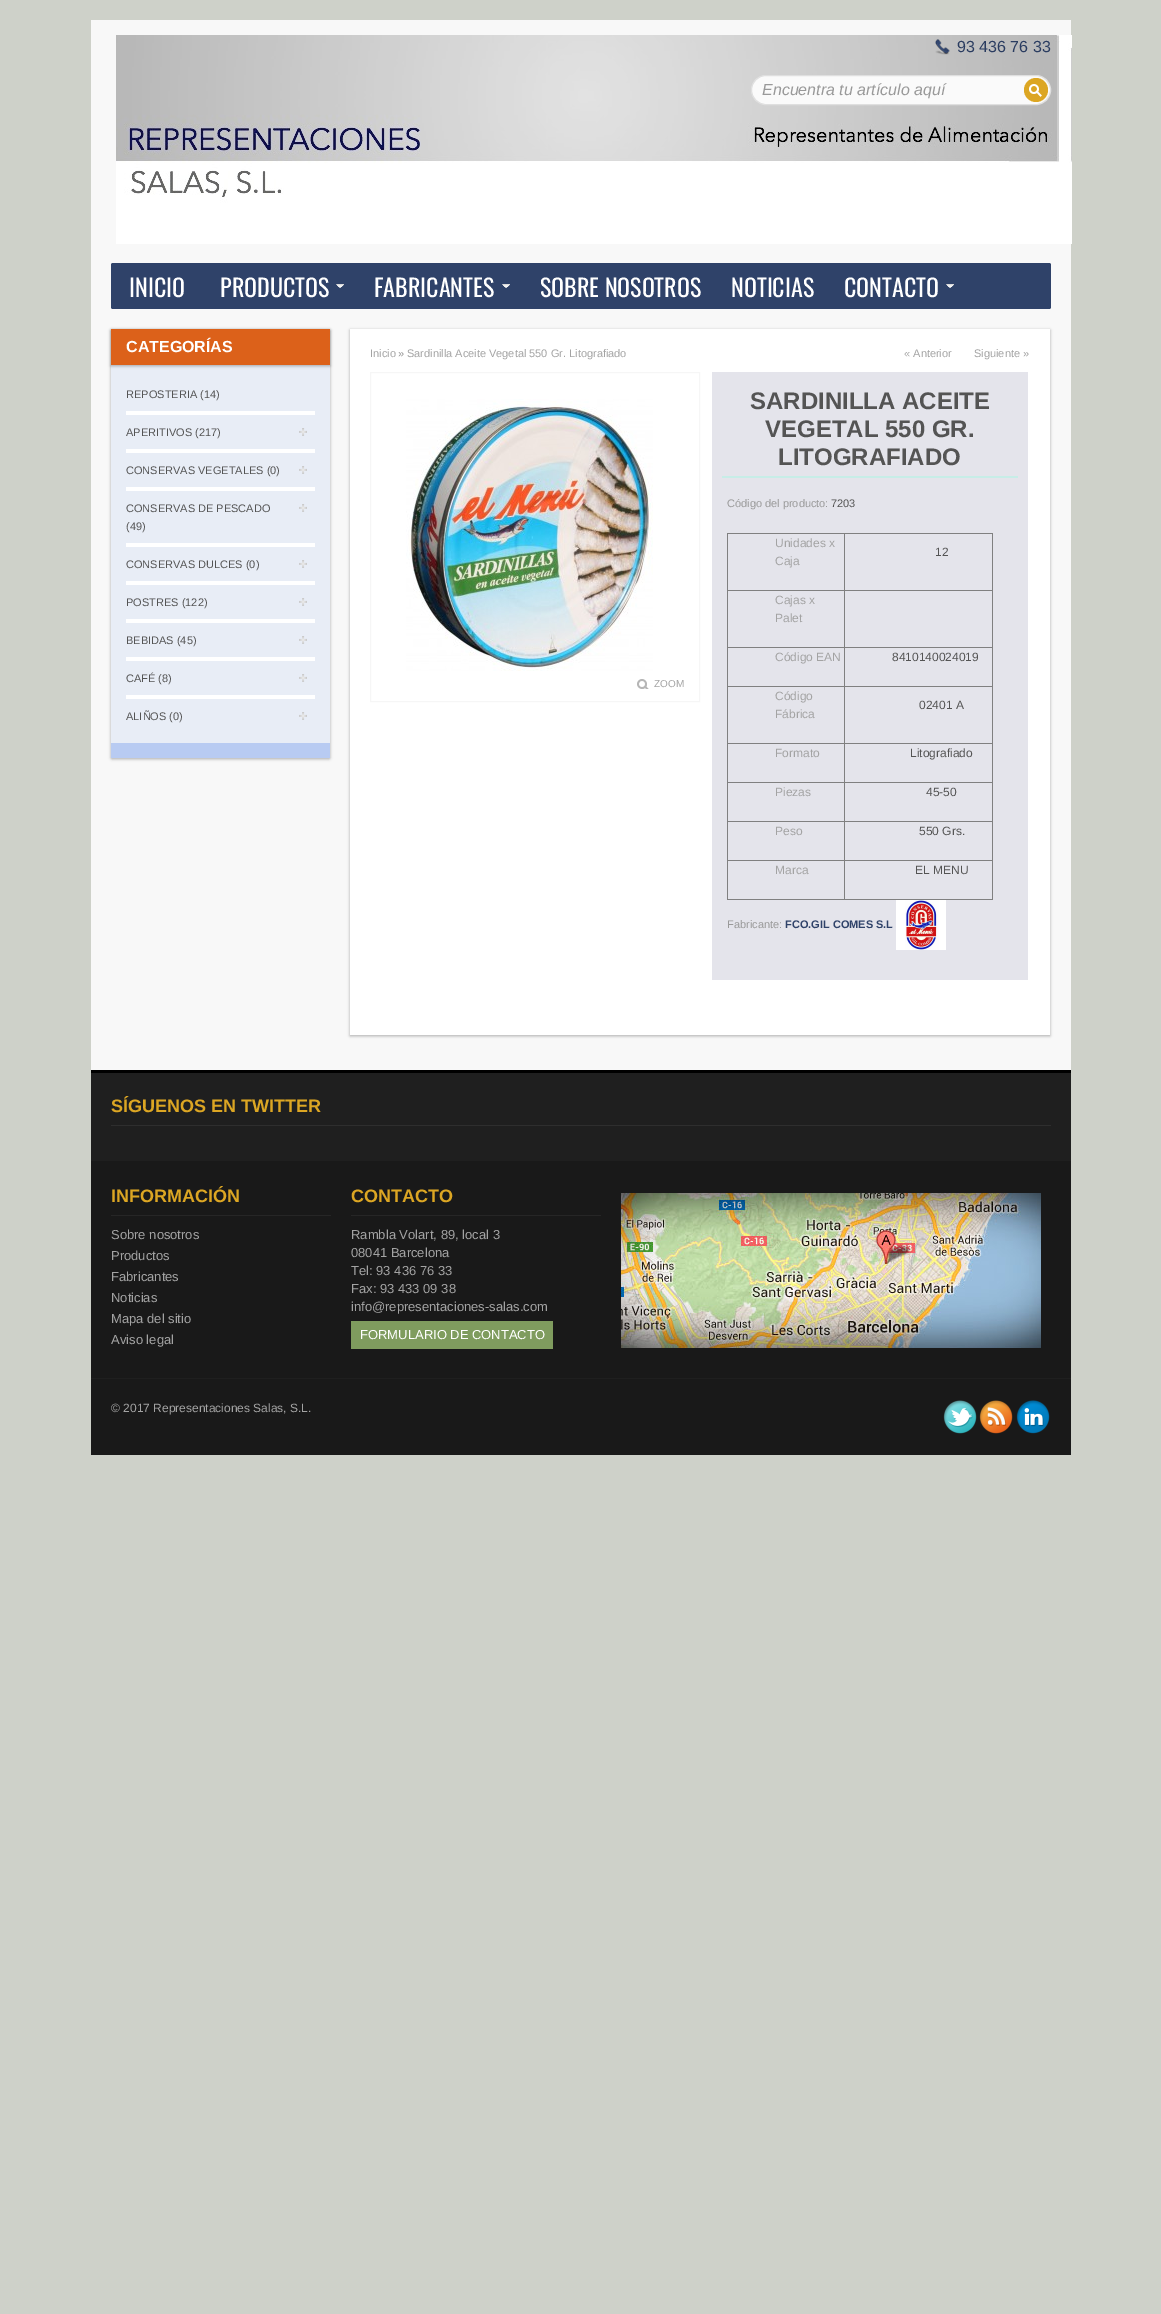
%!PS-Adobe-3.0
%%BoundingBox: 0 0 1161 2314
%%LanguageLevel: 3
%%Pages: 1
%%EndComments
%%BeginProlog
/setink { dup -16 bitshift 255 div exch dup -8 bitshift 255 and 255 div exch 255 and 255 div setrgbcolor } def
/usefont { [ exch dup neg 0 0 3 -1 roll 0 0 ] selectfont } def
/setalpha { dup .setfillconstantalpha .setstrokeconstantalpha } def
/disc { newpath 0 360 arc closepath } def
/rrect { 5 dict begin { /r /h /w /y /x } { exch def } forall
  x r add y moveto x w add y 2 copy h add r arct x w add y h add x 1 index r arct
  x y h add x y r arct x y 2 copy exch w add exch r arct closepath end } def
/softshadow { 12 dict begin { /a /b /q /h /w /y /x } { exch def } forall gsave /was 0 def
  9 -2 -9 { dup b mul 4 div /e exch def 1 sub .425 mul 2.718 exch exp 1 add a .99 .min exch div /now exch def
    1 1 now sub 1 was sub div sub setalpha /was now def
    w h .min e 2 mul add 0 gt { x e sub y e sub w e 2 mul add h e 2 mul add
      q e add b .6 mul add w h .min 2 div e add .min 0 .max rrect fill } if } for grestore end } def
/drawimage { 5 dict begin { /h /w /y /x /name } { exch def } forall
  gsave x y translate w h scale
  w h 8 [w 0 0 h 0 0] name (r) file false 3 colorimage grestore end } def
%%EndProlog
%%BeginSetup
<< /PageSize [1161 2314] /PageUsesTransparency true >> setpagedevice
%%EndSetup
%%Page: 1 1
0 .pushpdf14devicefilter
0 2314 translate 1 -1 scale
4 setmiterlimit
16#CED1C9 setink
0 0 1161 2314 rectfill
16#F8F8F8 setink
91 20 980 1050 rectfill
(img1.raw) 116 35 956 209 drawimage
(img2.raw) 935 39 15 16 drawimage
/LiberationSans-Regular 16 usefont
16#2A3C60 setink
957 52 moveto (93 436 76 33) show
16#FAFAFA setink
751.5 75.5 299 29 14.5 rrect gsave fill grestore
16#DFDFDF setink
stroke
/LiberationSans-Italic 16 usefont
16#999999 setink
762 95 moveto (Encuentra tu artículo aquí) show
16#DCA623 setink
1036 90 12 disc fill
(img3.raw) 1029 84 13 13 drawimage
16#2F4269 setink
111 263 940 46 2 rrect fill
/Oswald-Regular 24 usefont
16#FFFFFF setink
129 297 moveto (INICIO) show
(img4.raw) 336 284 8 4 drawimage
220 297 moveto (PRODUCTOS) show
(img4.raw) 502 284 8 4 drawimage
[
    [(FABRICANTES) 374 297]
    [(SOBRE NOSOTROS) 540 297]
    [(NOTICIAS) 731 297]
] { aload pop moveto show } forall
(img4.raw) 946 284 8 4 drawimage
844 297 moveto (CONTACTO) show
16#000000 setink
111 330 219 429 1 1.5 0.3 softshadow
16#B8CBF2 setink
111 329 219 429 1 rrect fill
16#E8EDF6 setink
111 365 219 378 rectfill
16#000000 setink
111 330 219 36 0 1.5 0.3 softshadow
16#DC611A setink
111 329 219 36 rectfill
/LiberationSans-Bold 16 usefont
16#FFFFFF setink
126 352 moveto (CATEGORÍAS) show
/LiberationSans-Regular 11 usefont
16#545454 setink
126 398 moveto (REPOSTERIA \(14\)) show
16#FFFFFF setink
126 411 189 4 rectfill
16#545454 setink
126 436 moveto (APERITIVOS \(217\)) show
(img5.raw) 299 428 8 8 drawimage
16#FFFFFF setink
126 449 189 4 rectfill
16#545454 setink
126 474 moveto (CONSERVAS VEGETALES \(0\)) show
(img5.raw) 299 466 8 8 drawimage
16#FFFFFF setink
126 487 189 4 rectfill
16#545454 setink
126 512 moveto (CONSERVAS DE PESCADO) show
(img5.raw) 299 504 8 8 drawimage
126 530 moveto (\(49\)) show
16#FFFFFF setink
126 543 189 4 rectfill
16#545454 setink
126 568 moveto (CONSERVAS DULCES \(0\)) show
(img5.raw) 299 560 8 8 drawimage
16#FFFFFF setink
126 581 189 4 rectfill
16#545454 setink
126 606 moveto (POSTRES \(122\)) show
(img5.raw) 299 598 8 8 drawimage
16#FFFFFF setink
126 619 189 4 rectfill
16#545454 setink
126 644 moveto (BEBIDAS \(45\)) show
(img5.raw) 299 636 8 8 drawimage
16#FFFFFF setink
126 657 189 4 rectfill
16#545454 setink
126 682 moveto (CAFÉ \(8\)) show
(img5.raw) 299 674 8 8 drawimage
16#FFFFFF setink
126 695 189 4 rectfill
16#545454 setink
126 720 moveto (ALIÑOS \(0\)) show
(img5.raw) 299 712 8 8 drawimage
16#000000 setink
350 330 700 706 0 1.5 0.3 softshadow
16#FFFFFF setink
350 329 700 706 rectfill
16#A3A3A3 setink
370 357 moveto (Inicio) show
16#999999 setink
398 357 moveto (») show
16#A3A3A3 setink
[
    [(Sardinilla Aceite Vegetal 550 Gr. Litografiado) 407 357]
    [(« Anterior) 904 357]
    [(Siguiente ») 974 357]
] { aload pop moveto show } forall
16#F6F6F6 setink
370.5 372.5 329 329 rectstroke
(img6.raw) 406 399 247 272 drawimage
(img7.raw) 637 679 12 10 drawimage
/LiberationSans-Regular 10 usefont
16#A3A3A3 setink
654 687 moveto (ZOOM) show
16#E4E4EB setink
712 372 316 608 rectfill
/LiberationSans-Bold 24 usefont
16#545454 setink
[
    [(SARDINILLA ACEITE) 750 409]
    [(VEGETAL 550 GR.) 765 437]
    [(LITOGRAFIADO) 778 465]
] { aload pop moveto show } forall
16#C7EDE7 setink
722 476 296 2 rectfill
/LiberationSans-Regular 11 usefont
16#999999 setink
727 507 moveto (Código del producto:) show
16#545454 setink
831 507 moveto (7203) show
[
    [727 533 266 1 16#808080]
    [992 533 1 367 16#808080]
    [727 899 266 1 16#808080]
    [727 533 1 367 16#808080]
] { aload pop setink rectfill } forall
/LiberationSans-Regular 12 usefont
16#A3A3A3 setink
775 547 moveto (Unidades x) show
775 565 moveto (Caja) show
[
    [844 590 149 1 16#808080]
    [844 647 149 1 16#808080]
    [844 686 149 1 16#808080]
    [844 743 149 1 16#808080]
    [844 782 149 1 16#808080]
    [844 821 149 1 16#808080]
    [844 860 149 1 16#808080]
    [844 860 1 40 16#808080]
    [727 860 118 1 16#808080]
    [844 821 1 40 16#808080]
    [727 821 118 1 16#808080]
    [844 782 1 40 16#808080]
    [727 782 118 1 16#808080]
    [844 743 1 40 16#808080]
    [727 743 118 1 16#808080]
    [844 686 1 58 16#808080]
    [727 686 118 1 16#808080]
    [844 647 1 40 16#808080]
    [727 647 118 1 16#808080]
    [844 590 1 58 16#808080]
    [727 590 118 1 16#808080]
    [844 533 1 58 16#808080]
] { aload pop setink rectfill } forall
16#545454 setink
935 556 moveto (12) show
16#A3A3A3 setink
[
    [(Cajas x) 775 604]
    [(Palet) 775 622]
    [(Código EAN) 775 661]
] { aload pop moveto show } forall
16#545454 setink
892 661 moveto (8410140024019) show
16#A3A3A3 setink
775 700 moveto (Código) show
775 718 moveto (Fábrica) show
16#545454 setink
919 709 moveto (02401 A) show
16#A3A3A3 setink
775 757 moveto (Formato) show
16#545454 setink
910 757 moveto (Litografiado) show
16#A3A3A3 setink
775 796 moveto (Piezas) show
16#545454 setink
926 796 moveto (45-50) show
16#A3A3A3 setink
775 835 moveto (Peso) show
16#545454 setink
919 835 moveto (550 Grs.) show
16#A3A3A3 setink
775 874 moveto (Marca) show
16#545454 setink
915 874 moveto (EL MENU) show
/LiberationSans-Regular 11 usefont
16#999999 setink
727 928 moveto (Fabricante:) show
/LiberationSans-Bold 11 usefont
16#2F4269 setink
785 928 moveto (FCO.GIL COMES S.L) show
(img8.raw) 896 900 50 50 drawimage
[
    [91 1073 980 88 16#1F1F1F]
    [91 1070 980 3 16#000000]
    [111 1125 940 1 16#2E2E2E]
] { aload pop setink rectfill } forall
/LiberationSans-Bold 18 usefont
16#DCA623 setink
111 1112 moveto (SÍGUENOS EN TWITTER) show
16#191919 setink
91 1161 980 217 rectfill
16#262626 setink
111 1215 220 1 rectfill
16#DCA623 setink
111 1202 moveto (INFORMACIÓN) show
/LiberationSans-Regular 13 usefont
16#A3A3A3 setink
[
    [(Sobre nosotros) 111 1239]
    [(Productos) 111 1260]
    [(Fabricantes) 111 1281]
    [(Noticias) 111 1302]
    [(Mapa del sitio) 111 1323]
    [(Aviso legal) 111 1344]
] { aload pop moveto show } forall
16#262626 setink
351 1215 250 1 rectfill
/LiberationSans-Bold 18 usefont
16#DCA623 setink
351 1202 moveto (CONTACTO) show
/LiberationSans-Regular 13 usefont
16#A3A3A3 setink
[
    [(Rambla Volart, 89, local 3) 351 1239]
    [(08041 Barcelona) 351 1257]
    [(Tel: 93 436 76 33) 351 1275]
    [(Fax: 93 433 09 38) 351 1293]
    [(info@representaciones-salas.com) 351 1311]
] { aload pop moveto show } forall
16#7F9C5E setink
351 1321 202 28 rectfill
16#FFFFFF setink
360 1339 moveto (FORMULARIO DE CONTACTO) show
(img9.raw) 621 1193 420 155 drawimage
16#191919 setink
91 1379 980 76 rectfill
16#1F1F1F setink
91 1378 980 1 rectfill
/LiberationSans-Regular 12 usefont
16#A3A3A3 setink
111 1412 moveto (© 2017 Representaciones Salas, S.L.) show
(img10.raw) 943 1400 34 34 drawimage
(img11.raw) 979 1400 34 34 drawimage
(img12.raw) 1016 1400 34 34 drawimage
.poppdf14devicefilter showpage
%%EOF
